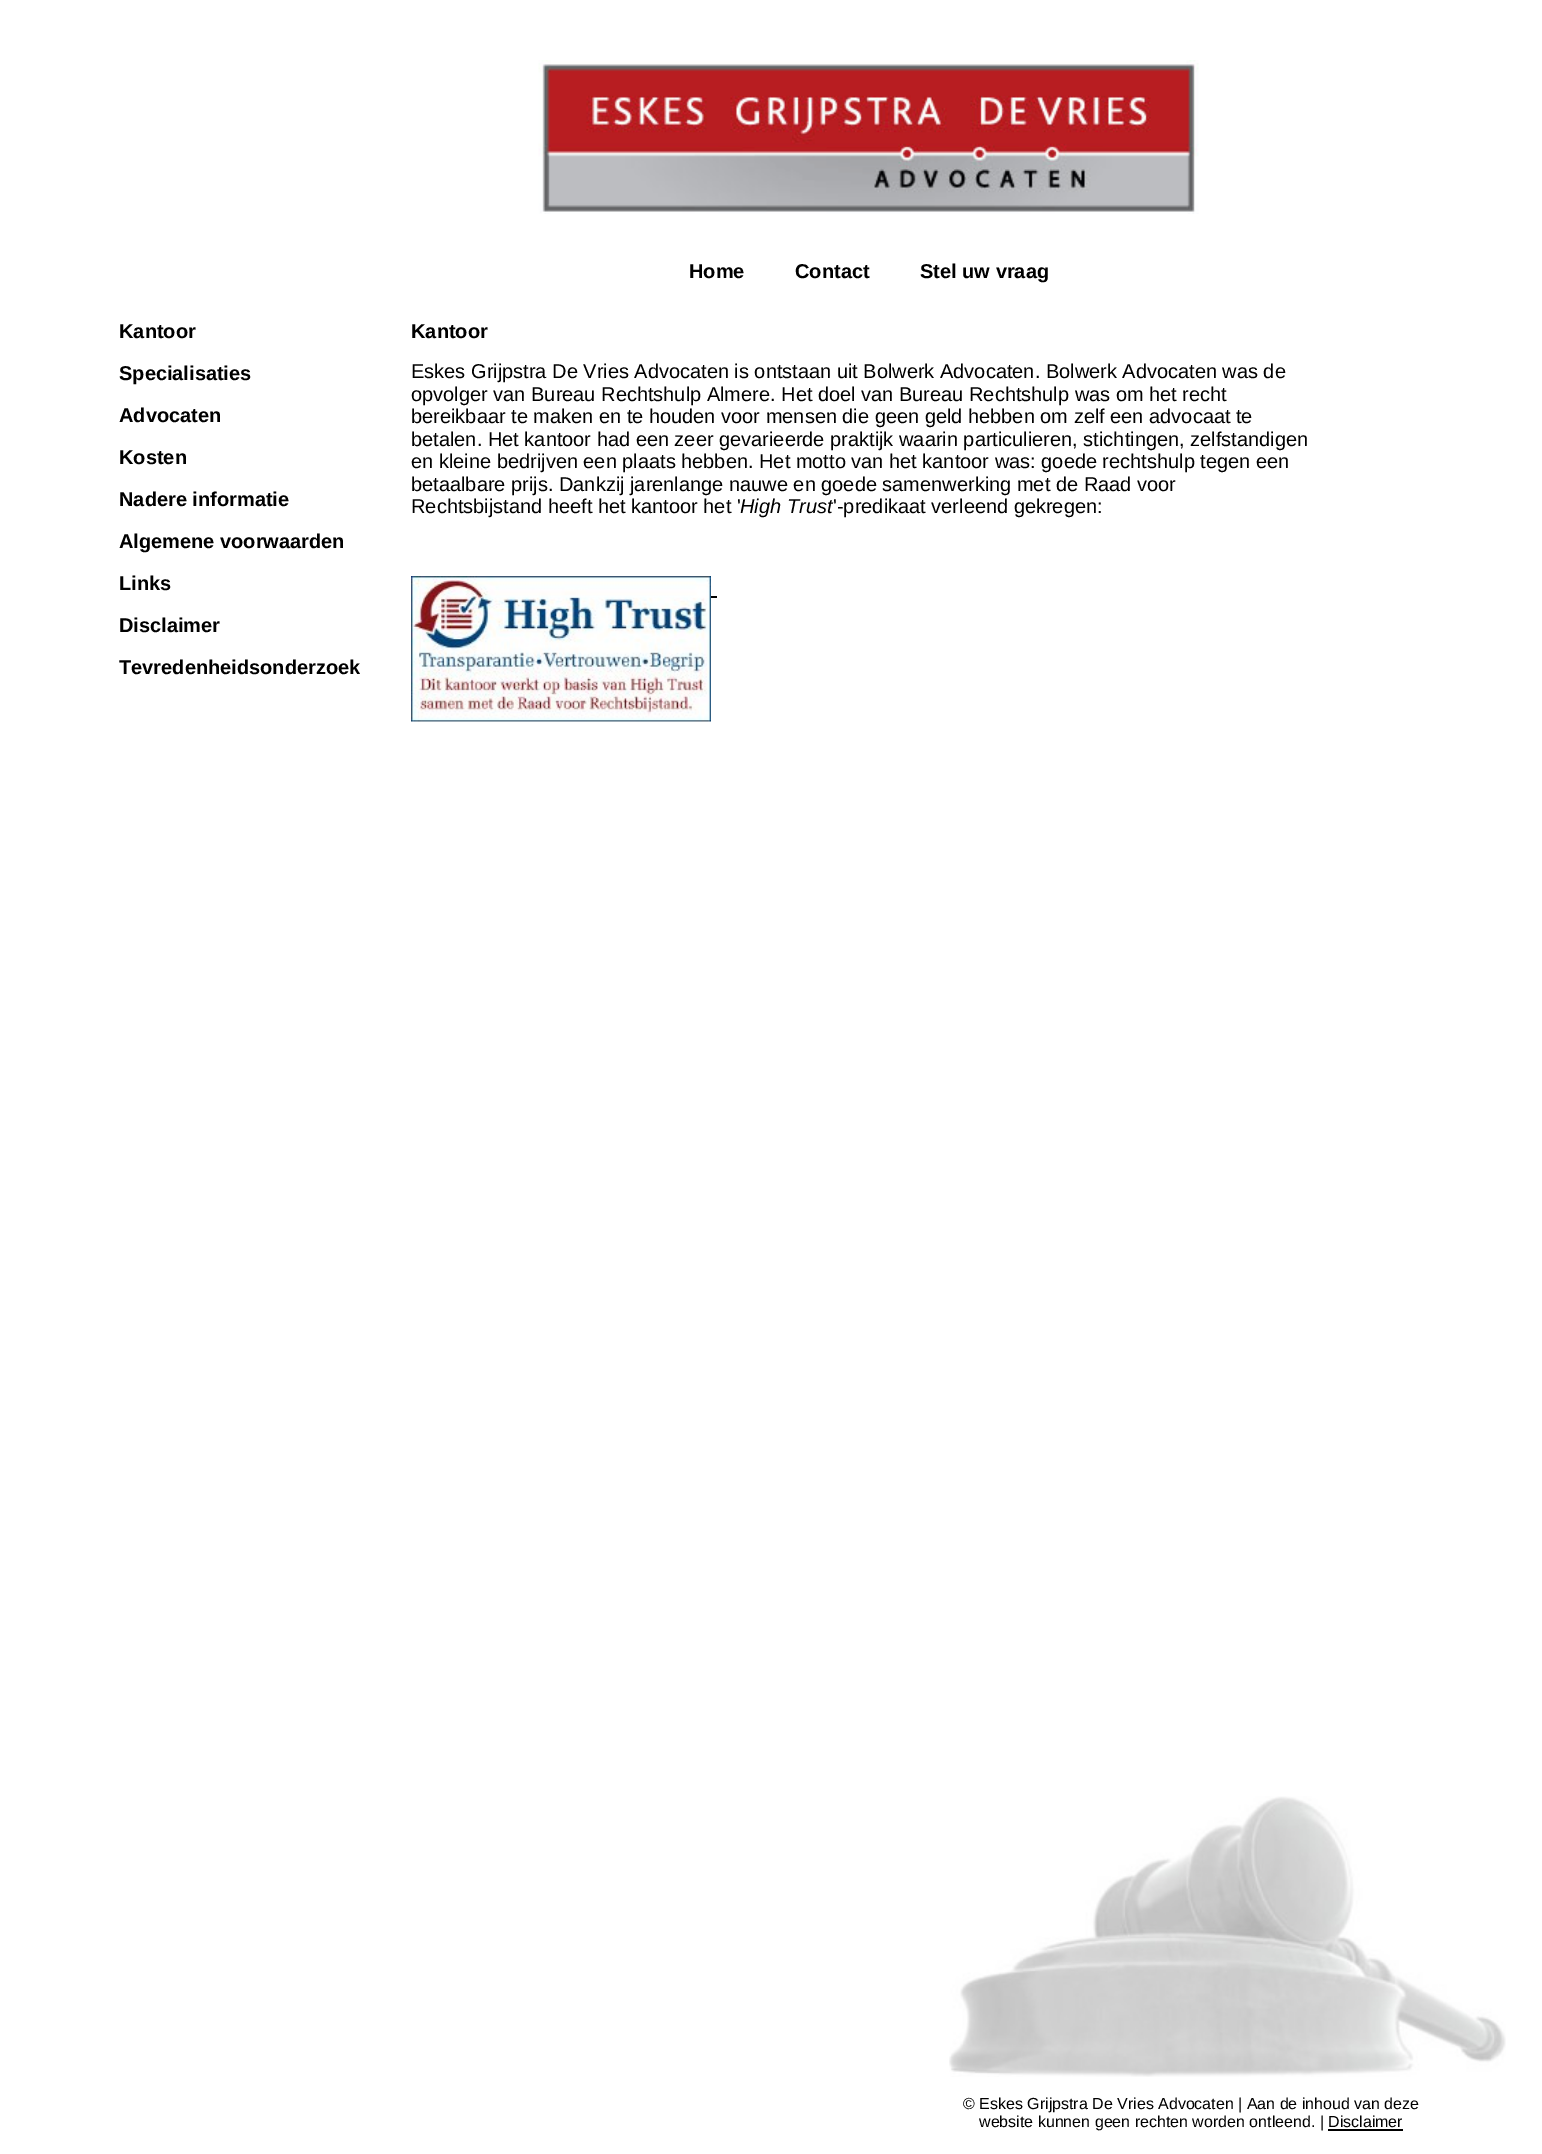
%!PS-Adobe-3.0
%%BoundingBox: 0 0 1542 2154
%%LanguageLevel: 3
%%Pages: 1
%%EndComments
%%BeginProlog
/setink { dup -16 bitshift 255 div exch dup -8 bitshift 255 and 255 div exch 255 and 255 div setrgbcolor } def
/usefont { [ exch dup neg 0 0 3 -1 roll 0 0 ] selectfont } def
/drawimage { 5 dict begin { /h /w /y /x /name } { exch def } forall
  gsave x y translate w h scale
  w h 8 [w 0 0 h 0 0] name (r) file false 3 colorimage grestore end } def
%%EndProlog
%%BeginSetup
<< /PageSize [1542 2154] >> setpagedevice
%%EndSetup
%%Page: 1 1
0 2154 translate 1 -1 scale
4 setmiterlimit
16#FFFFFF setink
0 0 1542 2154 rectfill
(img1.raw) 949 1796 557 281 drawimage
(img2.raw) 538 60 661 154 drawimage
/LiberationSans-Bold 20 usefont
16#000000 setink
[
    [(Home) 689 278]
    [(Contact) 795 278]
    [(Stel uw vraag) 920 278]
    [(Kantoor) 119 338]
    [(Specialisaties) 119 380]
    [(Advocaten) 119 422]
    [(Kosten) 119 464]
    [(Nadere informatie) 119 506]
    [(Algemene voorwaarden) 119 548]
    [(Links) 119 590]
    [(Disclaimer) 119 632]
    [(Tevredenheidsonderzoek) 119 674]
    [(Kantoor) 411 338]
] { aload pop moveto show } forall
/LiberationSans-Regular 20 usefont
[
    [(Eskes Grijpstra De Vries Advocaten is ontstaan uit Bolwerk Advocaten. Bolwerk Advocaten was de) 411 378]
    [(opvolger van Bureau Rechtshulp Almere. Het doel van Bureau Rechtshulp was om het recht) 411 401]
    [(bereikbaar te maken en te houden voor mensen die geen geld hebben om zelf een advocaat te) 411 423]
    [(betalen. Het kantoor had een zeer gevarieerde praktijk waarin particulieren, stichtingen, zelfstandigen) 411 446]
    [(en kleine bedrijven een plaats hebben. Het motto van het kantoor was: goede rechtshulp tegen een) 411 468]
    [(betaalbare prijs. Dankzij jarenlange nauwe en goede samenwerking met de Raad voor) 411 491]
    [(Rechtsbijstand heeft het kantoor het ') 411 513]
] { aload pop moveto show } forall
/LiberationSans-Italic 20 usefont
740 513 moveto (High Trust) show
/LiberationSans-Regular 20 usefont
833 513 moveto ('-predikaat verleend gekregen:) show
(img3.raw) 411 576 300 146 drawimage
711 596 6 2 rectfill
/LiberationSans-Regular 16 usefont
[
    [(© Eskes Grijpstra De Vries Advocaten | Aan de inhoud van deze) 963 2109]
    [(website kunnen geen rechten worden ontleend. |) 979 2127]
    [(Disclaimer) 1328 2127]
] { aload pop moveto show } forall
1328 2129 75 2 rectfill
showpage
%%EOF
